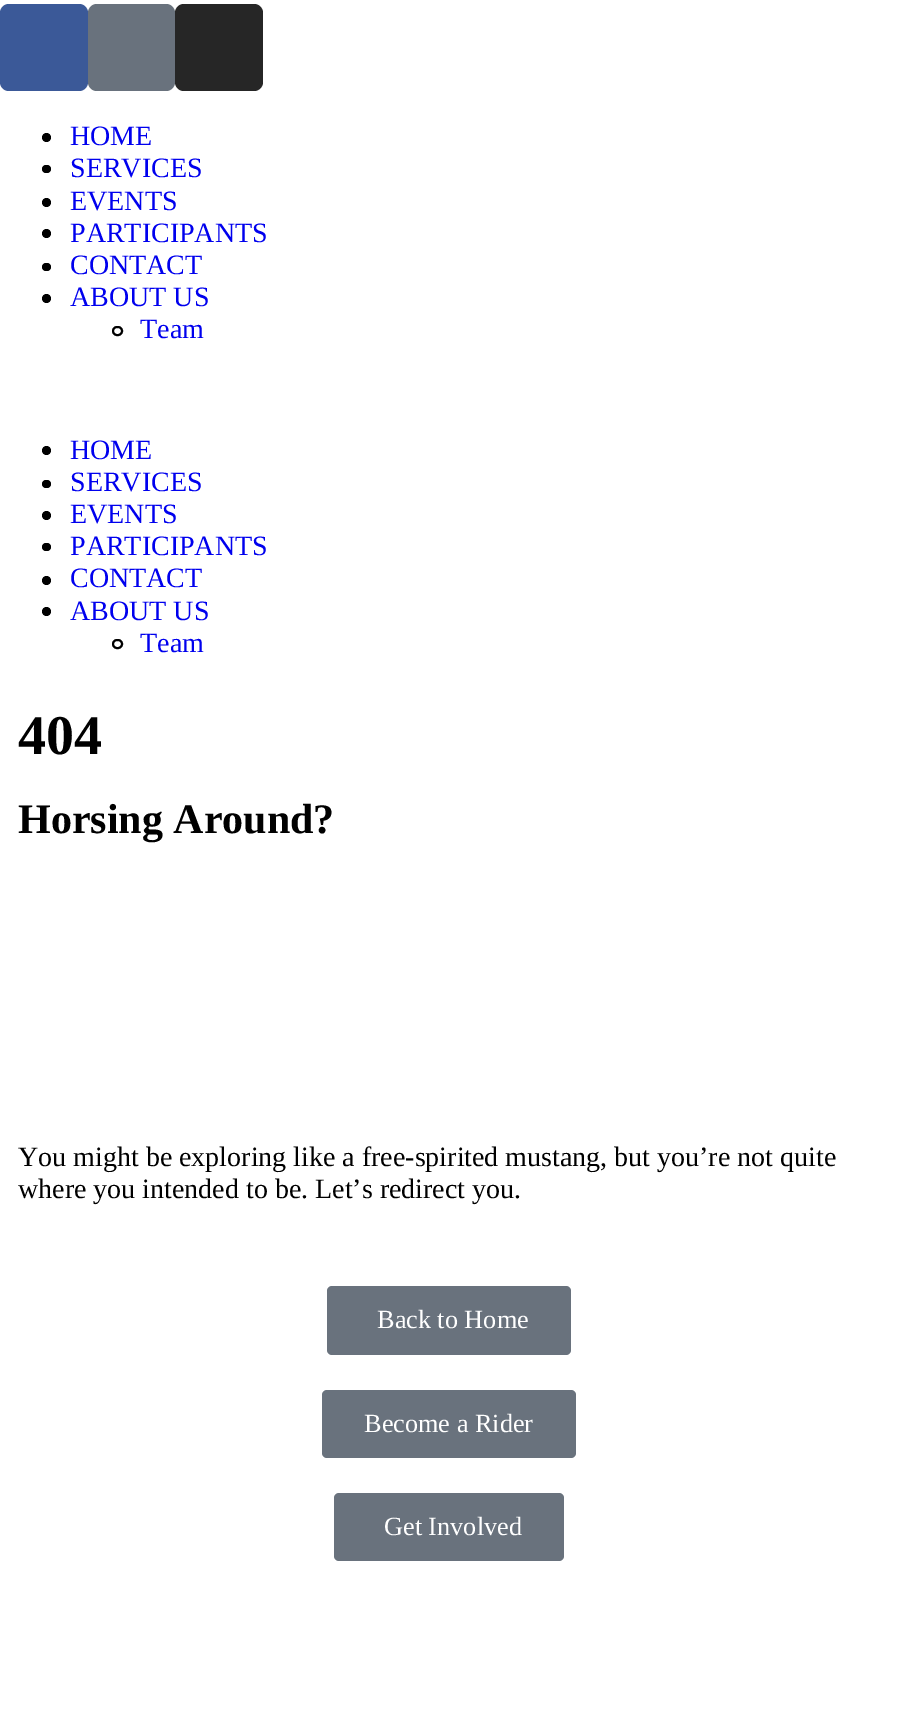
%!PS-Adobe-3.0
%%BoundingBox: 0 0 897 1717
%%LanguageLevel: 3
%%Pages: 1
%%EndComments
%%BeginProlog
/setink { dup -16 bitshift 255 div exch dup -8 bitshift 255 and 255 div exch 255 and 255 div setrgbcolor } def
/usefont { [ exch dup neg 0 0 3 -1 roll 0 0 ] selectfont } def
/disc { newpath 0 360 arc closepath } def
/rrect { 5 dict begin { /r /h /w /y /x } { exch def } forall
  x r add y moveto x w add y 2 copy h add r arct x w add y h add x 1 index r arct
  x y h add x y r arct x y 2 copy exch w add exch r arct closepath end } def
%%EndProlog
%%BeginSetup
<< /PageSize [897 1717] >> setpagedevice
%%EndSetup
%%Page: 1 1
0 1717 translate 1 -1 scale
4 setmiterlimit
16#FFFFFF setink
0 0 897 1717 rectfill
16#3B5998 setink
0 4 88 87 9 rrect fill
16#69727D setink
88 4 87 87 9 rrect fill
16#262626 setink
175 4 88 87 9 rrect fill
16#000000 setink
46.5 137.5 4.5 disc fill
/LiberationSerif-Regular 28 usefont
16#0000EE setink
70 145 moveto (HOME) show
16#000000 setink
42 165 9 8 4 rrect fill
16#0000EE setink
70 177 moveto (SERVICES) show
16#000000 setink
46.5 202.5 4.5 disc fill
16#0000EE setink
70 210 moveto (EVENTS) show
16#000000 setink
46.5 233.5 4.5 disc fill
16#0000EE setink
70 242 moveto (PARTICIPANTS) show
16#000000 setink
42 263 9 8 4 rrect fill
16#0000EE setink
70 274 moveto (CONTACT) show
16#000000 setink
46.5 298.5 4.5 disc fill
16#0000EE setink
70 306 moveto (ABOUT US) show
16#000000 setink
2 setlinewidth
113 327 9 8 4 rrect stroke
16#0000EE setink
140 338 moveto (Team) show
16#000000 setink
46.5 450.5 4.5 disc fill
16#0000EE setink
70 459 moveto (HOME) show
16#000000 setink
42 480 9 8 4 rrect fill
16#0000EE setink
70 491 moveto (SERVICES) show
16#000000 setink
46.5 515.5 4.5 disc fill
16#0000EE setink
70 523 moveto (EVENTS) show
16#000000 setink
42 543 9 8 4 rrect fill
16#0000EE setink
70 555 moveto (PARTICIPANTS) show
16#000000 setink
46.5 580.5 4.5 disc fill
16#0000EE setink
70 587 moveto (CONTACT) show
16#000000 setink
46.5 611.5 4.5 disc fill
16#0000EE setink
70 620 moveto (ABOUT US) show
16#000000 setink
113 640 9 8 4 rrect stroke
16#0000EE setink
140 652 moveto (Team) show
/LiberationSerif-Bold 56 usefont
16#000000 setink
18 754 moveto (404) show
/LiberationSerif-Bold 42 usefont
18 833 moveto (Horsing Around?) show
/LiberationSerif-Regular 28 usefont
18 1166 moveto (You might be exploring like a free-spirited mustang, but you’re not quite) show
18 1198 moveto (where you intended to be. Let’s redirect you.) show
16#69727D setink
327 1286 244 69 5 rrect fill
/LiberationSerif-Regular 26.25 usefont
16#FFFFFF setink
377 1328 moveto (Back to Home) show
16#69727D setink
322 1390 254 68 5 rrect fill
16#FFFFFF setink
364 1432 moveto (Become a Rider) show
16#69727D setink
334 1493 230 68 5 rrect fill
16#FFFFFF setink
384 1535 moveto (Get Involved) show
showpage
%%EOF
